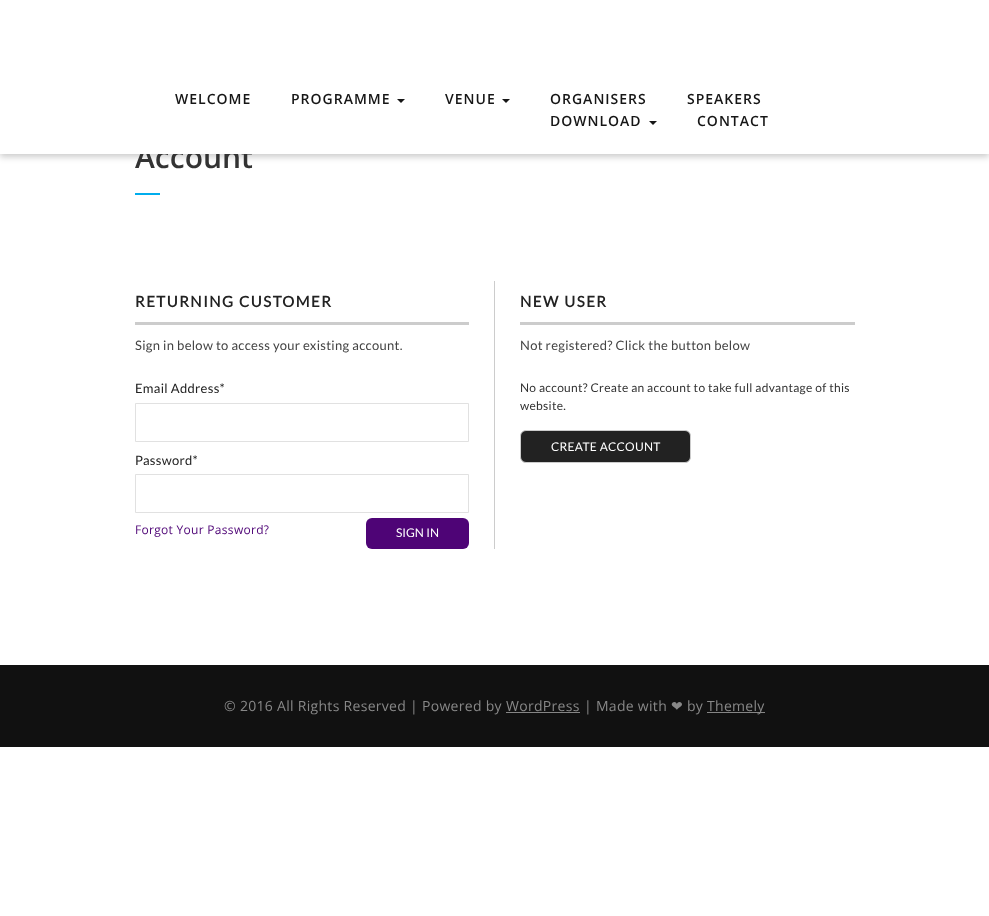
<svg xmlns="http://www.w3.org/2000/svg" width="989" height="916">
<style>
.a{font:600 30px Open Sans;fill:#333}
.b{font:600 14px Open Sans;letter-spacing:1px;fill:#161616}
.c{font:bold 15px Lato;letter-spacing:1.5px;fill:#222}
.d{font:13px Lato;letter-spacing:0.3px;fill:#444}
.e{font:13px Lato;letter-spacing:0.3px;fill:#222}
.f{font:12px Open Sans;letter-spacing:0.3px;fill:#4e0476}
.g{font:12px Lato;fill:#fff}
.h{font:12px Lato;letter-spacing:0.3px;fill:#333}
.i{font:12px Lato;letter-spacing:0.3px;fill:#fff}
.j{font:14px Open Sans;letter-spacing:0.3px;fill:#888}
.k{font:14px DejaVu Sans;letter-spacing:0.3px;fill:#888}
</style>
<rect width="100%" height="100%" fill="#fff"/>
<path fill="#00000033" filter="blur(3px)" d="M0 3h989v154H0z"/>
<path fill="#00aded" d="M135 193h25v2H135z"/>
<path fill="#ccc" d="M494 281h1v268H494z"/>
<path fill="#ccc" d="M135 322h334v3H135z"/>
<path fill="none" stroke="#e1e1e1" d="M135.5 403.5h333v38H135.5z"/>
<path fill="none" stroke="#e1e1e1" d="M135.5 474.5h333v38H135.5z"/>
<rect fill="#4e0476" x="366" y="518" width="103" height="31" rx="6"/>
<path fill="#ccc" d="M520 322h335v3H520z"/>
<rect fill="#222" stroke="#ccc" x="520.5" y="430.5" width="170" height="32" rx="5.5"/>
<path fill="#111" d="M0 665h989v82H0z"/>
<path fill="#858585" d="M506 712h74v1H506z"/>
<path fill="#858585" d="M707 712h58v1H707z"/>
<text class="a" x="135" y="168">Account</text>
<path fill="#fff" d="M0 0h989v154H0z"/>
<text class="b" x="697" y="126">CONTACT</text>
<path fill="#161616" d="M649 121h8l-4 4z"/>
<text class="b" x="550" y="126">DOWNLOAD</text>
<text class="b" x="687" y="104">SPEAKERS</text>
<text class="b" x="550" y="104">ORGANISERS</text>
<path fill="#161616" d="M502 99h8l-4 4z"/>
<text class="b" x="445" y="104">VENUE</text>
<path fill="#161616" d="M397 99h8l-4 4z"/>
<text class="b" x="291" y="104">PROGRAMME</text>
<text class="b" x="175" y="104">WELCOME</text>
<text class="c" x="135" y="307">RETURNING CUSTOMER</text>
<text class="d" x="135" y="350">Sign in below to access your existing account.</text>
<text class="e" x="135" y="393">Email Address*</text>
<text class="e" x="135" y="465">Password*</text>
<text class="f" x="135" y="534">Forgot Your Password?</text>
<text class="g" x="396" y="537">SIGN IN</text>
<text class="c" x="520" y="307">NEW USER</text>
<text class="d" x="520" y="350">Not registered? Click the button below</text>
<text class="h" x="520" y="392">No account? Create an account to take full advantage of this</text>
<text class="h" x="520" y="410">website.</text>
<text class="i" x="551" y="451">CREATE ACCOUNT</text>
<text class="j" x="224" y="711">© 2016 All Rights Reserved | Powered by</text>
<text class="j" x="506" y="711">WordPress</text>
<text class="j" x="584" y="711">| Made with</text>
<text class="k" x="671" y="711">❤</text>
<text class="j" x="687" y="711">by</text>
<text class="j" x="707" y="711">Themely</text>
</svg>
